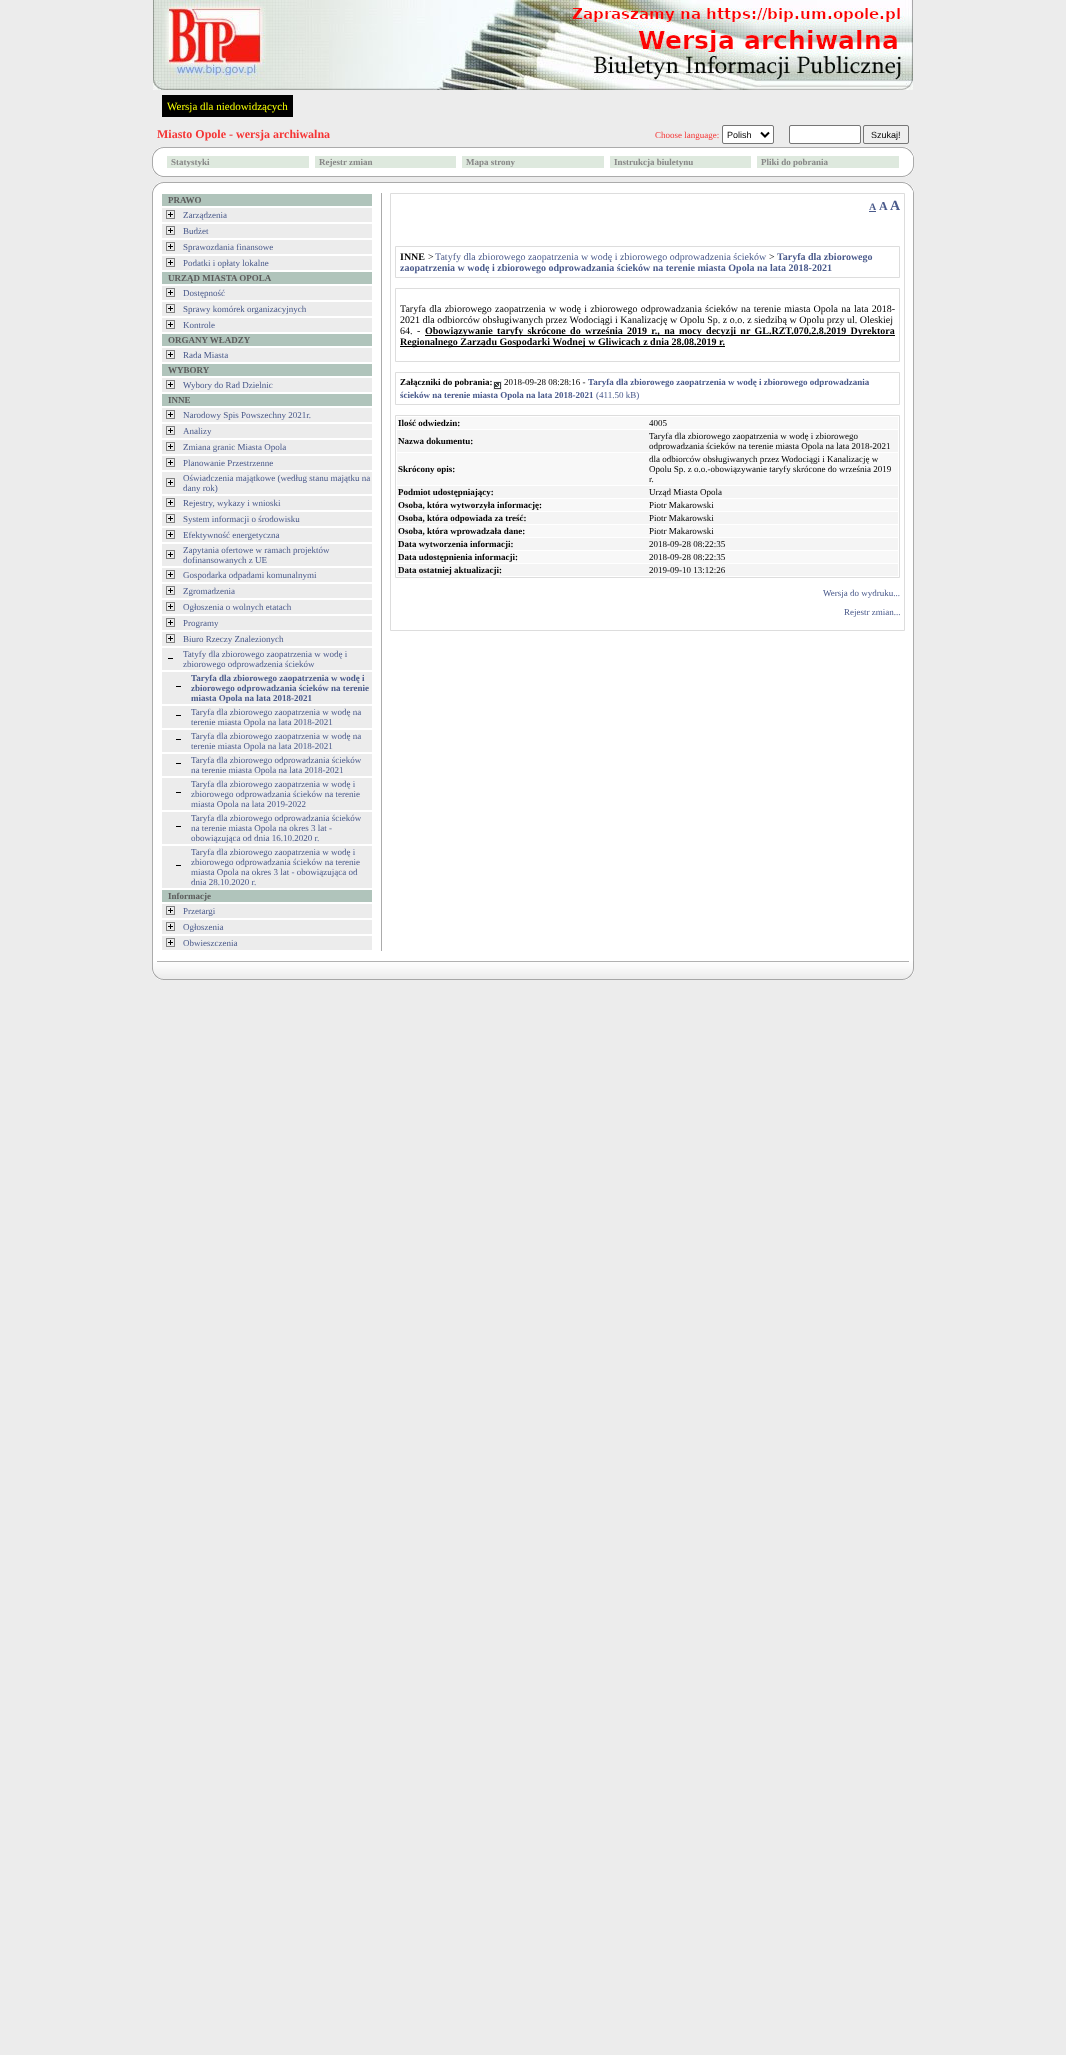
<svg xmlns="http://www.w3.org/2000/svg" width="1066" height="2055">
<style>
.a{font:11px Liberation Serif;fill:#f6ff00}
.b{font:bold 12px Liberation Serif;fill:#f53535}
.c{font:9px Liberation Serif;fill:#f53535}
.d{font:9px Liberation Sans;fill:#000}
.e{font:bold 9px Liberation Serif;fill:#878787}
.f{font:bold 9px Liberation Serif;fill:#5c5c5c}
.g{font:9px Liberation Serif;fill:#4a5a8b}
.h{font:bold 9px Liberation Serif;fill:#4a5a8b}
.i{font:bold 10px Liberation Serif;fill:#4a5a8b}
.j{font:bold 12px Liberation Serif;fill:#4a5a8b}
.k{font:bold 14px Liberation Serif;fill:#4a5a8b}
.l{font:bold 10px Liberation Serif;fill:#000}
.m{font:10px Liberation Serif;fill:#000}
.n{font:10px Liberation Serif;fill:#4a5a8b}
.o{font:bold 9px Liberation Serif;fill:#000}
.p{font:9px Liberation Serif;fill:#000}
</style>
<rect width="100%" height="100%" fill="#ececec"/>
<image href="1.png" x="153" y="0" width="760" height="90"/>
<path fill="#000" d="M162 95h131v22H162z"/>
<rect fill="#fff" stroke="#767676" x="722.5" y="125.5" width="51" height="18" rx="1.5"/>
<path fill="none" stroke="#000" stroke-width="2" d="M761 132.5l4 4l4-4"/>
<rect fill="#fff" stroke="#767676" x="789.5" y="125.5" width="71" height="18" rx="1.5"/>
<rect fill="#efefef" stroke="#767676" x="863.5" y="125.5" width="45" height="18" rx="1.5"/>
<path fill="#fff" d="M152 158h11v8H152z"/>
<path fill="#ababab" d="M152 158h1v8H152z"/>
<path fill="#fff" d="M903 158h11v8H903z"/>
<path fill="#ababab" d="M913 158h1v8H913z"/>
<image href="2.png" x="152" y="147" width="11" height="11"/>
<image href="3.png" x="903" y="147" width="11" height="11"/>
<path fill="#fff" d="M163 148h740v28H163z"/>
<path fill="#ababab" d="M163 147h740v1H163z"/>
<path fill="#ababab" d="M163 176h740v1H163z"/>
<path fill="#dee9de" d="M167 156h142v12H167z"/>
<path fill="#dee9de" d="M315 156h141v12H315z"/>
<path fill="#dee9de" d="M462 156h142v12H462z"/>
<path fill="#dee9de" d="M610 156h141v12H610z"/>
<path fill="#dee9de" d="M757 156h142v12H757z"/>
<image href="4.png" x="152" y="166" width="11" height="11"/>
<image href="5.png" x="903" y="166" width="11" height="11"/>
<image href="2.png" x="152" y="182" width="11" height="11"/>
<path fill="#fff" d="M163 183h740v10H163z"/>
<path fill="#ababab" d="M163 182h740v1H163z"/>
<image href="3.png" x="903" y="182" width="11" height="11"/>
<path fill="#fff" d="M153 193h760v768H153z"/>
<path fill="#ababab" d="M913 193h1v768H913z"/>
<path fill="#ababab" d="M152 193h1v768H152z"/>
<path fill="#b0c4bb" d="M162 194h210v12H162z"/>
<path fill="#ececec" d="M162 208h210v14H162z"/>
<image href="6.png" x="166" y="210" width="9" height="9"/>
<path fill="#ececec" d="M162 224h210v14H162z"/>
<image href="6.png" x="166" y="226" width="9" height="9"/>
<path fill="#ececec" d="M162 240h210v14H162z"/>
<image href="6.png" x="166" y="242" width="9" height="9"/>
<path fill="#ececec" d="M162 256h210v14H162z"/>
<image href="6.png" x="166" y="258" width="9" height="9"/>
<path fill="#b0c4bb" d="M162 272h210v12H162z"/>
<path fill="#ececec" d="M162 286h210v14H162z"/>
<image href="6.png" x="166" y="288" width="9" height="9"/>
<path fill="#ececec" d="M162 302h210v14H162z"/>
<image href="6.png" x="166" y="304" width="9" height="9"/>
<path fill="#ececec" d="M162 318h210v14H162z"/>
<image href="6.png" x="166" y="320" width="9" height="9"/>
<path fill="#b0c4bb" d="M162 334h210v12H162z"/>
<path fill="#ececec" d="M162 348h210v14H162z"/>
<image href="6.png" x="166" y="350" width="9" height="9"/>
<path fill="#b0c4bb" d="M162 364h210v12H162z"/>
<path fill="#ececec" d="M162 378h210v14H162z"/>
<image href="6.png" x="166" y="380" width="9" height="9"/>
<path fill="#b0c4bb" d="M162 394h210v12H162z"/>
<path fill="#ececec" d="M162 408h210v14H162z"/>
<image href="6.png" x="166" y="410" width="9" height="9"/>
<path fill="#ececec" d="M162 424h210v14H162z"/>
<image href="6.png" x="166" y="426" width="9" height="9"/>
<path fill="#ececec" d="M162 440h210v14H162z"/>
<image href="6.png" x="166" y="442" width="9" height="9"/>
<path fill="#ececec" d="M162 456h210v14H162z"/>
<image href="6.png" x="166" y="458" width="9" height="9"/>
<path fill="#ececec" d="M162 472h210v22H162z"/>
<image href="6.png" x="166" y="478" width="9" height="9"/>
<path fill="#ececec" d="M162 496h210v14H162z"/>
<image href="6.png" x="166" y="498" width="9" height="9"/>
<path fill="#ececec" d="M162 512h210v14H162z"/>
<image href="6.png" x="166" y="514" width="9" height="9"/>
<path fill="#ececec" d="M162 528h210v14H162z"/>
<image href="6.png" x="166" y="530" width="9" height="9"/>
<path fill="#ececec" d="M162 544h210v22H162z"/>
<image href="6.png" x="166" y="550" width="9" height="9"/>
<path fill="#ececec" d="M162 568h210v14H162z"/>
<image href="6.png" x="166" y="570" width="9" height="9"/>
<path fill="#ececec" d="M162 584h210v14H162z"/>
<image href="6.png" x="166" y="586" width="9" height="9"/>
<path fill="#ececec" d="M162 600h210v14H162z"/>
<image href="6.png" x="166" y="602" width="9" height="9"/>
<path fill="#ececec" d="M162 616h210v14H162z"/>
<image href="6.png" x="166" y="618" width="9" height="9"/>
<path fill="#ececec" d="M162 632h210v14H162z"/>
<image href="6.png" x="166" y="634" width="9" height="9"/>
<path fill="#ececec" d="M162 648h210v22H162z"/>
<path fill="#000" d="M168 658h5v1H168z"/>
<path fill="#ececec" d="M162 672h210v32H162z"/>
<path fill="#000" d="M176 686h5v1H176z"/>
<path fill="#ececec" d="M162 706h210v22H162z"/>
<path fill="#000" d="M176 715h5v1H176z"/>
<path fill="#ececec" d="M162 730h210v22H162z"/>
<path fill="#000" d="M176 739h5v1H176z"/>
<path fill="#ececec" d="M162 754h210v22H162z"/>
<path fill="#000" d="M176 763h5v1H176z"/>
<path fill="#ececec" d="M162 778h210v32H162z"/>
<path fill="#000" d="M176 792h5v1H176z"/>
<path fill="#ececec" d="M162 812h210v32H162z"/>
<path fill="#000" d="M176 826h5v1H176z"/>
<path fill="#ececec" d="M162 846h210v42H162z"/>
<path fill="#000" d="M176 865h5v1H176z"/>
<path fill="#b0c4bb" d="M162 890h210v12H162z"/>
<path fill="#ececec" d="M162 904h210v14H162z"/>
<image href="6.png" x="166" y="906" width="9" height="9"/>
<path fill="#ececec" d="M162 920h210v14H162z"/>
<image href="6.png" x="166" y="922" width="9" height="9"/>
<path fill="#ececec" d="M162 936h210v14H162z"/>
<image href="6.png" x="166" y="938" width="9" height="9"/>
<path fill="#ababab" d="M381 193h1v758H381z"/>
<path fill="none" stroke="#ddd" d="M390.5 193.5h514v437H390.5z"/>
<path fill="#4a5a8b" d="M869 211h7v1H869z"/>
<path fill="none" stroke="#ddd" d="M395.5 246.5h504v31H395.5z"/>
<path fill="none" stroke="#ddd" d="M395.5 288.5h504v73H395.5z"/>
<path fill="#000" d="M425 335h470v1H425z"/>
<path fill="#000" d="M400 346h325v1H400z"/>
<path fill="none" stroke="#ddd" d="M395.5 372.5h504v32H395.5z"/>
<image href="7.png" x="493" y="381" width="9" height="9"/>
<path fill="none" stroke="#ddd" d="M395.5 415.5h504v162H395.5z"/>
<path fill="#f8f8f8" d="M397 417h501v12H397z"/>
<path fill="#f4f4f4" d="M397 430h501v22H397z"/>
<path fill="#f8f8f8" d="M397 453h501v32H397z"/>
<path fill="#f4f4f4" d="M397 486h501v12H397z"/>
<path fill="#f8f8f8" d="M397 499h501v12H397z"/>
<path fill="#f4f4f4" d="M397 512h501v12H397z"/>
<path fill="#f8f8f8" d="M397 525h501v12H397z"/>
<path fill="#f4f4f4" d="M397 538h501v12H397z"/>
<path fill="#f8f8f8" d="M397 551h501v12H397z"/>
<path fill="#f4f4f4" d="M397 564h501v12H397z"/>
<image href="8.png" x="152" y="961" width="11" height="19"/>
<image href="9.png" x="163" y="961" width="740" height="19"/>
<image href="10.png" x="903" y="961" width="11" height="19"/>
<text class="a" x="167" y="110">Wersja dla niedowidzących</text>
<text class="b" x="157" y="138">Miasto Opole - wersja archiwalna</text>
<text class="c" x="655" y="138">Choose language:</text>
<text class="d" x="727" y="138">Polish</text>
<text class="d" x="871" y="138">Szukaj!</text>
<text class="e" x="171" y="165">Statystyki</text>
<text class="e" x="319" y="165">Rejestr zmian</text>
<text class="e" x="466" y="165">Mapa strony</text>
<text class="e" x="614" y="165">Instrukcja biuletynu</text>
<text class="e" x="761" y="165">Pliki do pobrania</text>
<text class="f" x="168" y="203">PRAWO</text>
<text class="g" x="183" y="218">Zarządzenia</text>
<text class="g" x="183" y="234">Budżet</text>
<text class="g" x="183" y="250">Sprawozdania finansowe</text>
<text class="g" x="183" y="266">Podatki i opłaty lokalne</text>
<text class="f" x="168" y="281">URZĄD MIASTA OPOLA</text>
<text class="g" x="183" y="296">Dostępność</text>
<text class="g" x="183" y="312">Sprawy komórek organizacyjnych</text>
<text class="g" x="183" y="328">Kontrole</text>
<text class="f" x="168" y="343">ORGANY WŁADZY</text>
<text class="g" x="183" y="358">Rada Miasta</text>
<text class="f" x="168" y="373">WYBORY</text>
<text class="g" x="183" y="388">Wybory do Rad Dzielnic</text>
<text class="f" x="168" y="403">INNE</text>
<text class="g" x="183" y="418">Narodowy Spis Powszechny 2021r.</text>
<text class="g" x="183" y="434">Analizy</text>
<text class="g" x="183" y="450">Zmiana granic Miasta Opola</text>
<text class="g" x="183" y="466">Planowanie Przestrzenne</text>
<text class="g" x="183" y="481">Oświadczenia majątkowe (według stanu majątku na</text>
<text class="g" x="183" y="491">dany rok)</text>
<text class="g" x="183" y="506">Rejestry, wykazy i wnioski</text>
<text class="g" x="183" y="522">System informacji o środowisku</text>
<text class="g" x="183" y="538">Efektywność energetyczna</text>
<text class="g" x="183" y="553">Zapytania ofertowe w ramach projektów</text>
<text class="g" x="183" y="563">dofinansowanych z UE</text>
<text class="g" x="183" y="578">Gospodarka odpadami komunalnymi</text>
<text class="g" x="183" y="594">Zgromadzenia</text>
<text class="g" x="183" y="610">Ogłoszenia o wolnych etatach</text>
<text class="g" x="183" y="626">Programy</text>
<text class="g" x="183" y="642">Biuro Rzeczy Znalezionych</text>
<text class="g" x="183" y="657">Tatyfy dla zbiorowego zaopatrzenia w wodę i</text>
<text class="g" x="183" y="667">zbiorowego odprowadzenia ścieków</text>
<text class="h" x="191" y="681">Taryfa dla zbiorowego zaopatrzenia w wodę i</text>
<text class="h" x="191" y="691">zbiorowego odprowadzania ścieków na terenie</text>
<text class="h" x="191" y="701">miasta Opola na lata 2018-2021</text>
<text class="g" x="191" y="715">Taryfa dla zbiorowego zaopatrzenia w wodę na</text>
<text class="g" x="191" y="725">terenie miasta Opola na lata 2018-2021</text>
<text class="g" x="191" y="739">Taryfa dla zbiorowego zaopatrzenia w wodę na</text>
<text class="g" x="191" y="749">terenie miasta Opola na lata 2018-2021</text>
<text class="g" x="191" y="763">Taryfa dla zbiorowego odprowadzania ścieków</text>
<text class="g" x="191" y="773">na terenie miasta Opola na lata 2018-2021</text>
<text class="g" x="191" y="787">Taryfa dla zbiorowego zaopatrzenia w wodę i</text>
<text class="g" x="191" y="797">zbiorowego odprowadzania ścieków na terenie</text>
<text class="g" x="191" y="807">miasta Opola na lata 2019-2022</text>
<text class="g" x="191" y="821">Taryfa dla zbiorowego odprowadzania ścieków</text>
<text class="g" x="191" y="831">na terenie miasta Opola na okres 3 lat -</text>
<text class="g" x="191" y="841">obowiązująca od dnia 16.10.2020 r.</text>
<text class="g" x="191" y="855">Taryfa dla zbiorowego zaopatrzenia w wodę i</text>
<text class="g" x="191" y="865">zbiorowego odprowadzania ścieków na terenie</text>
<text class="g" x="191" y="875">miasta Opola na okres 3 lat - obowiązująca od</text>
<text class="g" x="191" y="885">dnia 28.10.2020 r.</text>
<text class="f" x="168" y="899">Informacje</text>
<text class="g" x="183" y="914">Przetargi</text>
<text class="g" x="183" y="930">Ogłoszenia</text>
<text class="g" x="183" y="946">Obwieszczenia</text>
<text class="i" x="869" y="210">A</text>
<text class="j" x="879" y="210">A</text>
<text class="k" x="890" y="210">A</text>
<text class="l" x="400" y="260">INNE</text>
<text class="m" x="428" y="260">&gt;</text>
<text class="n" x="435" y="260">Tatyfy dla zbiorowego zaopatrzenia w wodę i zbiorowego odprowadzenia ścieków</text>
<text class="m" x="769" y="260">&gt;</text>
<text class="i" x="777" y="260">Taryfa dla zbiorowego</text>
<text class="i" x="400" y="271">zaopatrzenia w wodę i zbiorowego odprowadzania ścieków na terenie miasta Opola na lata 2018-2021</text>
<text class="m" x="400" y="312" word-spacing="0.75">Taryfa dla zbiorowego zaopatrzenia w wodę i zbiorowego odprowadzania ścieków na terenie miasta Opola na lata 2018-</text>
<text class="m" x="400" y="323">2021 dla odbiorców obsługiwanych przez Wodociągi i Kanalizację w Opolu Sp. z o.o. z siedzibą w Opolu przy ul. Oleskiej</text>
<text class="m" x="400" y="334" word-spacing="2">64. -</text>
<text class="l" x="425" y="334" word-spacing="1.8">Obowiązywanie taryfy skrócone do września 2019 r., na mocy decyzji nr GL.RZT.070.2.8.2019 Dyrektora</text>
<text class="l" x="400" y="345">Regionalnego Zarządu Gospodarki Wodnej w Gliwicach z dnia 28.08.2019 r.</text>
<text class="o" x="400" y="385">Załączniki do pobrania:</text>
<text class="p" x="504" y="385">2018-09-28 08:28:16 -</text>
<text class="h" x="588" y="385">Taryfa dla zbiorowego zaopatrzenia w wodę i zbiorowego odprowadzania</text>
<text class="h" x="400" y="398">ścieków na terenie miasta Opola na lata 2018-2021</text>
<text class="g" x="596" y="398">(411.50 kB)</text>
<text class="o" x="398" y="426">Ilość odwiedzin:</text>
<text class="p" x="649" y="426">4005</text>
<text class="o" x="398" y="444">Nazwa dokumentu:</text>
<text class="p" x="649" y="439">Taryfa dla zbiorowego zaopatrzenia w wodę i zbiorowego</text>
<text class="p" x="649" y="449">odprowadzania ścieków na terenie miasta Opola na lata 2018-2021</text>
<text class="o" x="398" y="472">Skrócony opis:</text>
<text class="p" x="649" y="462">dla odbiorców obsługiwanych przez Wodociągi i Kanalizację w</text>
<text class="p" x="649" y="472">Opolu Sp. z o.o.-obowiązywanie taryfy skrócone do września 2019</text>
<text class="p" x="649" y="482">r.</text>
<text class="o" x="398" y="495">Podmiot udostępniający:</text>
<text class="p" x="649" y="495">Urząd Miasta Opola</text>
<text class="o" x="398" y="508">Osoba, która wytworzyła informację:</text>
<text class="p" x="649" y="508">Piotr Makarowski</text>
<text class="o" x="398" y="521">Osoba, która odpowiada za treść:</text>
<text class="p" x="649" y="521">Piotr Makarowski</text>
<text class="o" x="398" y="534">Osoba, która wprowadzała dane:</text>
<text class="p" x="649" y="534">Piotr Makarowski</text>
<text class="o" x="398" y="547">Data wytworzenia informacji:</text>
<text class="p" x="649" y="547">2018-09-28 08:22:35</text>
<text class="o" x="398" y="560">Data udostępnienia informacji:</text>
<text class="p" x="649" y="560">2018-09-28 08:22:35</text>
<text class="o" x="398" y="573">Data ostatniej aktualizacji:</text>
<text class="p" x="649" y="573">2019-09-10 13:12:26</text>
<text class="g" x="823" y="596">Wersja do wydruku...</text>
<text class="g" x="844" y="615">Rejestr zmian...</text>
</svg>
